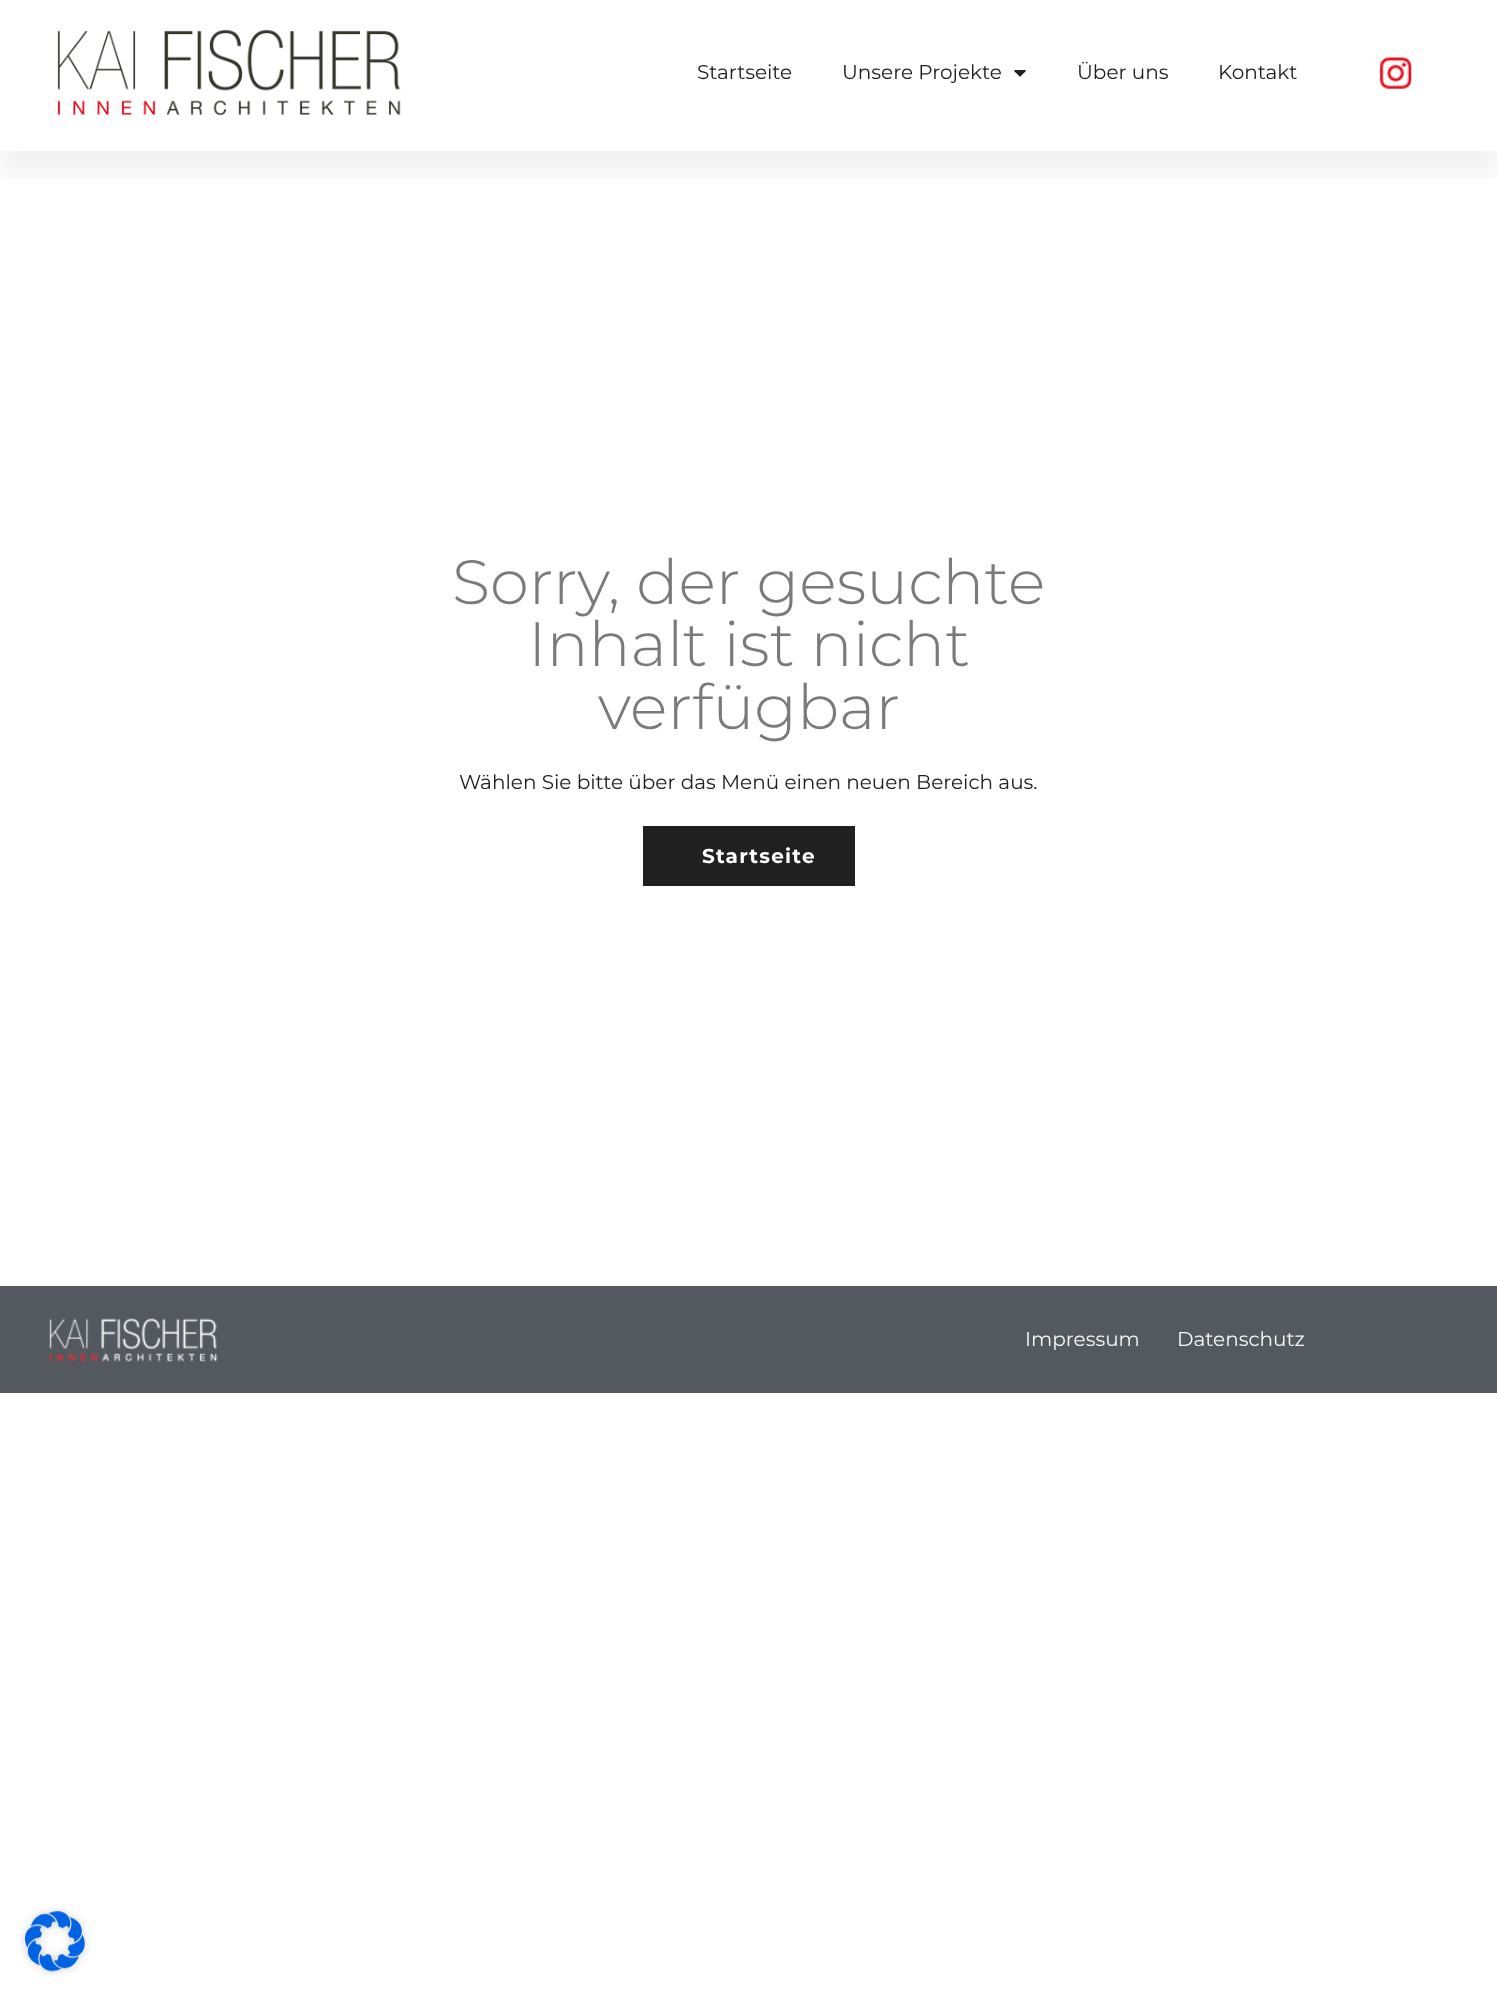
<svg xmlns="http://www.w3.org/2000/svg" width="1497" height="1996">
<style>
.a{font:20px Montserrat;fill:#202020}
.b{font:300 62.5px Montserrat;fill:#7a7a7a}
.c{font:bold 20px Montserrat;letter-spacing:1.25px;fill:#fff}
.d{font:20px Montserrat;fill:#f6f6f6}
</style>
<defs>
<clipPath id="clip1"><path d="M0 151h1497v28H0z"/></clipPath>
</defs>
<rect width="100%" height="100%" fill="#fff"/>
<g clip-path="url(#clip1)">
<path fill="#0000000d" filter="blur(12.5px)" d="M0 25h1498v151H0z"/>
</g>
<image href="1.png" x="57" y="29" width="344" height="87"/>
<image href="2.png" x="1014" y="70" width="12" height="7"/>
<image href="3.png" x="1379" y="57" width="33" height="32"/>
<path fill="#202020" d="M643 826h212v60H643z"/>
<path fill="#54595f" d="M0 1286h1497v107H0z"/>
<image href="4.png" x="48" y="1318" width="170" height="44"/>
<image href="5.png" x="20" y="1906" width="70" height="70"/>
<text class="a" x="697" y="79">Startseite</text>
<text class="a" x="842" y="79">Unsere Projekte</text>
<text class="a" x="1077" y="79">Über uns</text>
<text class="a" x="1218" y="79">Kontakt</text>
<text class="b" x="452" y="604">Sorry, der gesuchte</text>
<text class="b" x="528" y="666">Inhalt ist nicht</text>
<text class="b" x="598" y="729">verfügbar</text>
<text class="a" x="459" y="789">Wählen Sie bitte über das Menü einen neuen Bereich aus.</text>
<text class="c" x="702" y="863">Startseite</text>
<text class="d" x="1025" y="1346">Impressum</text>
<text class="d" x="1177" y="1346">Datenschutz</text>
</svg>
